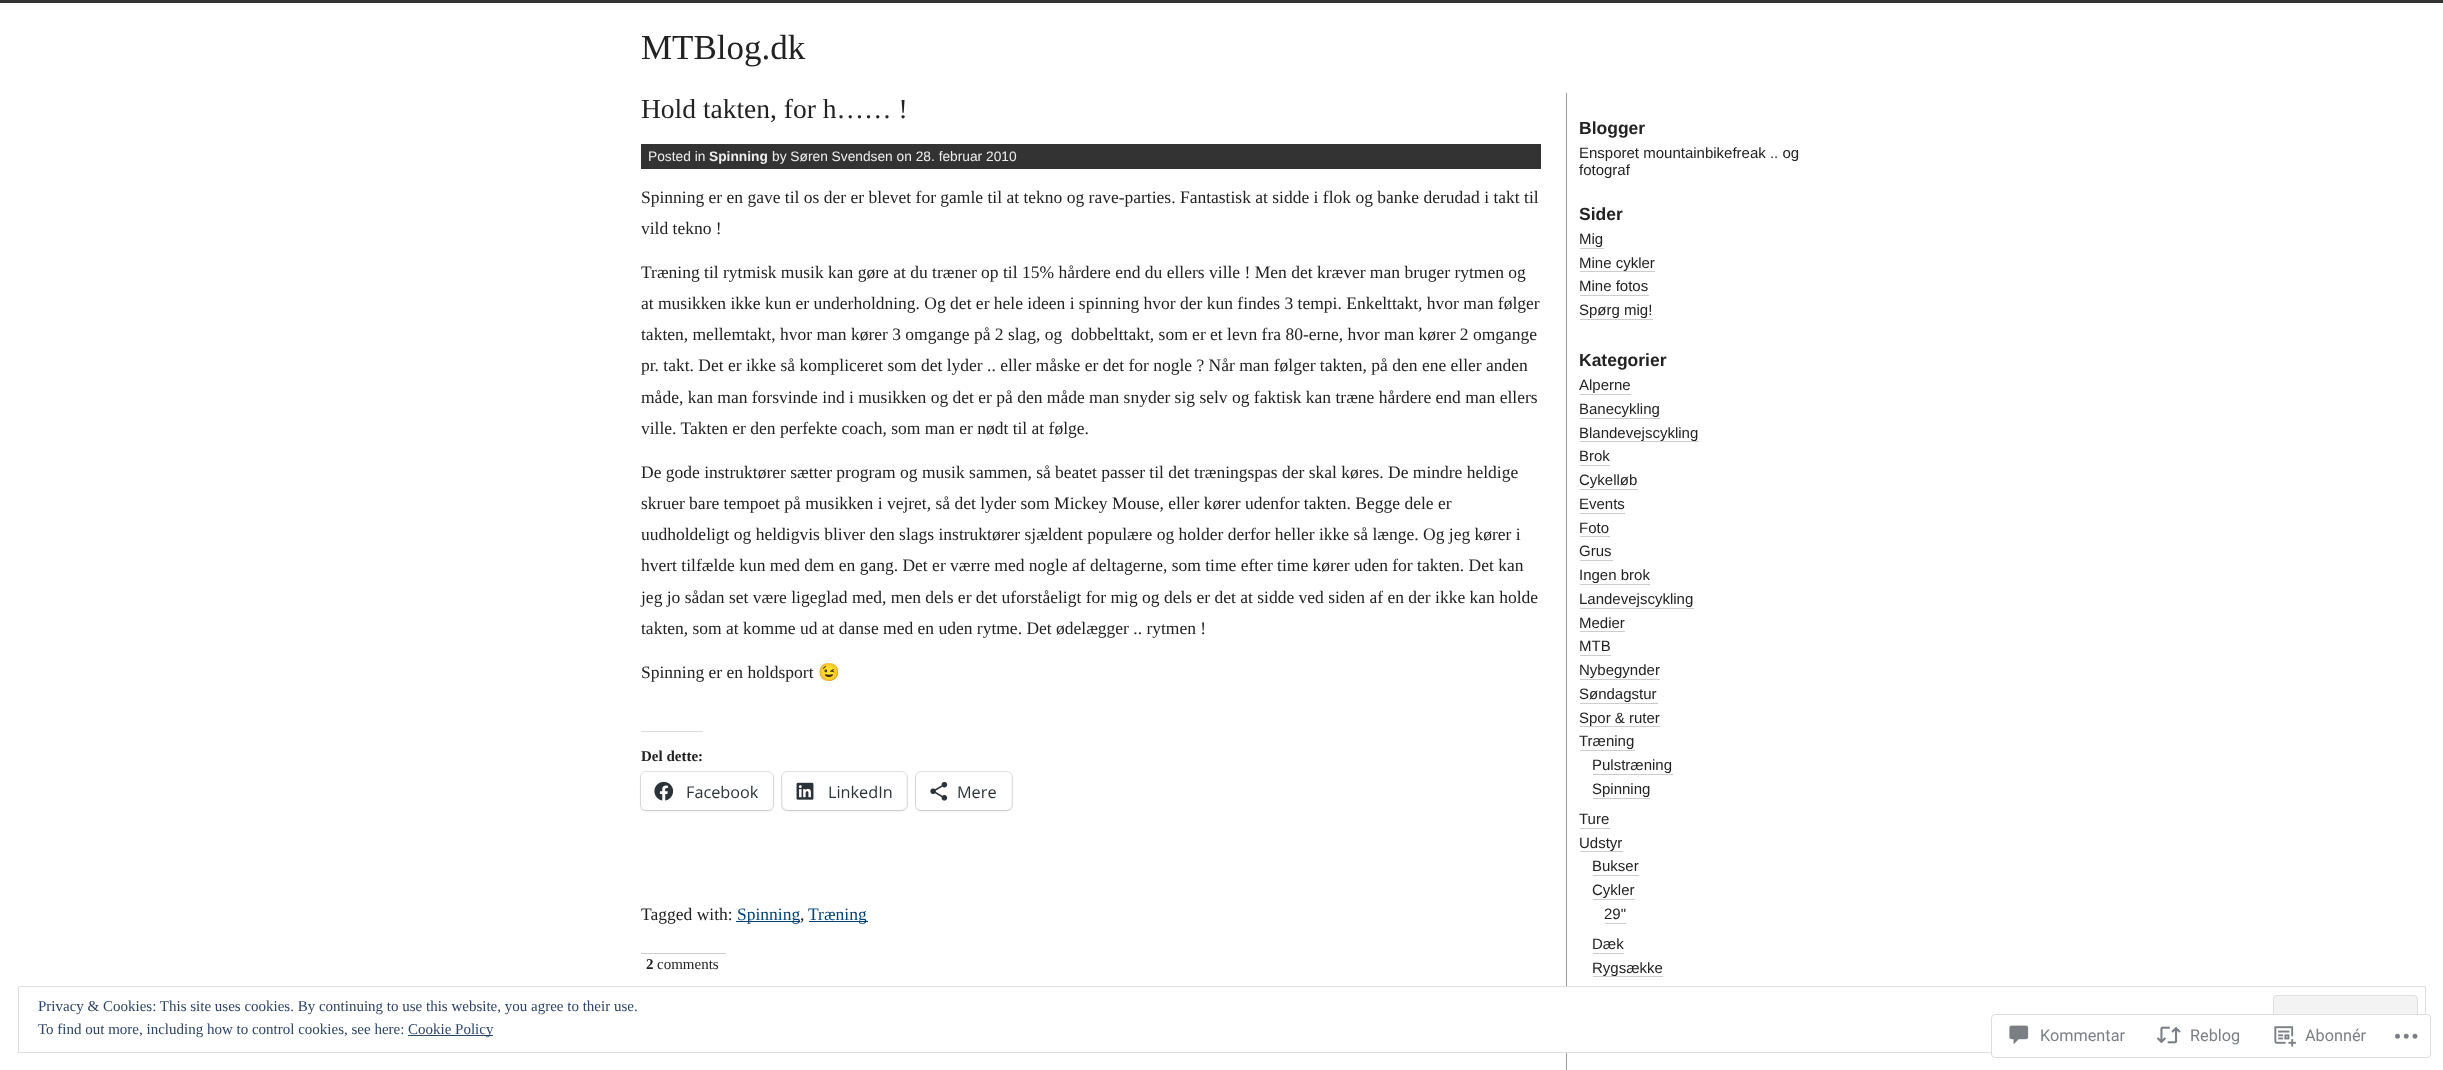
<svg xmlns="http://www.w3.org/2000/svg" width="2443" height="1070">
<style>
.a{font:35px Liberation Serif;fill:#222}
.b{font:27.5px Liberation Serif;fill:#222}
.c{font:13.75px Liberation Sans;fill:#eee}
.d{font:bold 13.75px Liberation Sans;fill:#eee}
.e{font:17.5px Liberation Serif;fill:#222}
.f{font:17.5px Noto Color Emoji;fill:#222}
.g{font:bold 15px Liberation Serif;fill:#222}
.h{font:16.25px Open Sans;fill:#2c3338}
.i{font:17.5px Liberation Serif;fill:#004276}
.j{font:15px Liberation Serif;fill:#222}
.k{font:bold 17.5px Liberation Sans;fill:#222}
.l{font:15px Liberation Sans;fill:#222}
.m{font:15px Liberation Serif;fill:#2e4467}
.n{font:16.25px Roboto;fill:#7b7f85}
</style>
<rect width="100%" height="100%" fill="#fff"/>
<path fill="#333" d="M0 0h2443v3H0z"/>
<path fill="#333" d="M641 144h900v25H641z"/>
<path fill="#dcdcde" d="M641 731h62v1H641z"/>
<rect fill="none" stroke="#e0e0e0" x="640.5" y="771.5" width="133" height="39" rx="5.5"/>
<rect fill="#0000001f" filter="blur(1px)" x="641" y="774" width="132" height="37" rx="5"/>
<rect fill="#fff" x="641" y="773" width="132" height="37" rx="5"/>
<image href="1.png" x="654" y="781" width="20" height="20"/>
<rect fill="none" stroke="#e0e0e0" x="781.5" y="771.5" width="126" height="39" rx="5.5"/>
<rect fill="#0000001f" filter="blur(1px)" x="783" y="774" width="123" height="37" rx="5"/>
<rect fill="#fff" x="783" y="773" width="123" height="37" rx="5"/>
<image href="2.png" x="796" y="782" width="18" height="18"/>
<rect fill="none" stroke="#e0e0e0" x="915.5" y="771.5" width="97" height="39" rx="5.5"/>
<rect fill="#0000001f" filter="blur(1px)" x="916" y="774" width="95" height="37" rx="5"/>
<rect fill="#fff" x="916" y="773" width="95" height="37" rx="5"/>
<image href="3.png" x="930" y="781" width="18" height="20"/>
<path fill="#004276" d="M736 921h64v1H736z"/>
<path fill="#004276" d="M809 921h59v1H809z"/>
<path fill="#ccc" d="M641 953h85v1H641z"/>
<path fill="#999" d="M1566 93h1v977H1566z"/>
<path fill="#ccc" d="M1580 248h24v1H1580z"/>
<path fill="#ccc" d="M1580 271h75v1H1580z"/>
<path fill="#ccc" d="M1580 295h69v1H1580z"/>
<path fill="#ccc" d="M1580 319h73v1H1580z"/>
<path fill="#ccc" d="M1580 394h51v1H1580z"/>
<path fill="#ccc" d="M1580 418h80v1H1580z"/>
<path fill="#ccc" d="M1580 441h119v1H1580z"/>
<path fill="#ccc" d="M1580 465h30v1H1580z"/>
<path fill="#ccc" d="M1580 489h58v1H1580z"/>
<path fill="#ccc" d="M1580 513h45v1H1580z"/>
<path fill="#ccc" d="M1580 536h30v1H1580z"/>
<path fill="#ccc" d="M1580 560h33v1H1580z"/>
<path fill="#ccc" d="M1580 584h70v1H1580z"/>
<path fill="#ccc" d="M1580 608h114v1H1580z"/>
<path fill="#ccc" d="M1580 631h45v1H1580z"/>
<path fill="#ccc" d="M1580 655h31v1H1580z"/>
<path fill="#ccc" d="M1580 679h80v1H1580z"/>
<path fill="#ccc" d="M1580 703h78v1H1580z"/>
<path fill="#ccc" d="M1580 726h80v1H1580z"/>
<path fill="#ccc" d="M1580 750h55v1H1580z"/>
<path fill="#ccc" d="M1593 774h80v1H1593z"/>
<path fill="#ccc" d="M1593 798h57v1H1593z"/>
<path fill="#ccc" d="M1580 828h30v1H1580z"/>
<path fill="#ccc" d="M1580 851h43v1H1580z"/>
<path fill="#ccc" d="M1593 875h46v1H1593z"/>
<path fill="#ccc" d="M1593 899h42v1H1593z"/>
<path fill="#ccc" d="M1605 923h21v1H1605z"/>
<path fill="#ccc" d="M1593 953h31v1H1593z"/>
<path fill="#ccc" d="M1593 976h70v1H1593z"/>
<path fill="#fff" d="M1566 987h1v65H1566z"/>
<path fill="none" stroke="#dedede" d="M18.5 986.5h2407v66H18.5z"/>
<rect fill="#f3f3f3" stroke="#dedede" x="2273.5" y="995.5" width="144" height="48" rx="3.5"/>
<path fill="#2e4467" d="M408 1035h85v1H408z"/>
<rect fill="#fffffffa" x="1991" y="1014" width="440" height="44" rx="4"/>
<rect fill="none" stroke="#dcdcdefa" x="1991.5" y="1014.5" width="439" height="43" rx="3.5"/>
<image href="4.png" x="2009" y="1025" width="20" height="20"/>
<image href="5.png" x="2156" y="1026" width="25" height="18"/>
<image href="6.png" x="2274" y="1026" width="22" height="21"/>
<image href="7.png" x="2395" y="1033" width="23" height="6"/>
<text class="a" x="641" y="59">MTBlog.dk</text>
<text class="b" x="641" y="118">Hold takten, for h…… !</text>
<text class="c" x="648" y="161">Posted in</text>
<text class="d" x="709" y="161">Spinning</text>
<text class="c" x="772" y="161">by Søren Svendsen on 28. februar 2010</text>
<text class="e" x="641" y="203">Spinning er en gave til os der er blevet for gamle til at tekno og rave-parties. Fantastisk at sidde i flok og banke derudad i takt til</text>
<text class="e" x="641" y="234">vild tekno !</text>
<text class="e" x="641" y="278">Træning til rytmisk musik kan gøre at du træner op til 15% hårdere end du ellers ville ! Men det kræver man bruger rytmen og</text>
<text class="e" x="641" y="309">at musikken ikke kun er underholdning. Og det er hele ideen i spinning hvor der kun findes 3 tempi. Enkelttakt, hvor man følger</text>
<text class="e" xml:space="preserve" x="641" y="340">takten, mellemtakt, hvor man kører 3 omgange på 2 slag, og  dobbelttakt, som er et levn fra 80-erne, hvor man kører 2 omgange</text>
<text class="e" x="641" y="371">pr. takt. Det er ikke så kompliceret som det lyder .. eller måske er det for nogle ? Når man følger takten, på den ene eller anden</text>
<text class="e" x="641" y="403">måde, kan man forsvinde ind i musikken og det er på den måde man snyder sig selv og faktisk kan træne hårdere end man ellers</text>
<text class="e" x="641" y="434">ville. Takten er den perfekte coach, som man er nødt til at følge.</text>
<text class="e" x="641" y="478">De gode instruktører sætter program og musik sammen, så beatet passer til det træningspas der skal køres. De mindre heldige</text>
<text class="e" x="641" y="509">skruer bare tempoet på musikken i vejret, så det lyder som Mickey Mouse, eller kører udenfor takten. Begge dele er</text>
<text class="e" x="641" y="540">uudholdeligt og heldigvis bliver den slags instruktører sjældent populære og holder derfor heller ikke så længe. Og jeg kører i</text>
<text class="e" x="641" y="571">hvert tilfælde kun med dem en gang. Det er værre med nogle af deltagerne, som time efter time kører uden for takten. Det kan</text>
<text class="e" x="641" y="603">jeg jo sådan set være ligeglad med, men dels er det uforståeligt for mig og dels er det at sidde ved siden af en der ikke kan holde</text>
<text class="e" x="641" y="634">takten, som at komme ud at danse med en uden rytme. Det ødelægger .. rytmen !</text>
<text class="e" x="641" y="678">Spinning er en holdsport</text>
<text class="f" x="818" y="678">😉</text>
<text class="g" x="641" y="761">Del dette:</text>
<text class="h" x="686" y="798">Facebook</text>
<text class="h" x="828" y="798">LinkedIn</text>
<text class="h" x="957" y="798">Mere</text>
<text class="e" x="641" y="920">Tagged with:</text>
<text class="i" x="737" y="920">Spinning</text>
<text class="e" x="800" y="920">,</text>
<text class="i" x="808" y="920">Træning</text>
<text class="g" x="646" y="969">2</text>
<text class="j" x="657" y="969">comments</text>
<text class="k" x="1579" y="134">Blogger</text>
<text class="l" x="1579" y="158">Ensporet mountainbikefreak .. og</text>
<text class="l" x="1579" y="175">fotograf</text>
<text class="k" x="1579" y="220">Sider</text>
<text class="l" x="1579" y="244">Mig</text>
<text class="l" x="1579" y="268">Mine cykler</text>
<text class="l" x="1579" y="291">Mine fotos</text>
<text class="l" x="1579" y="315">Spørg mig!</text>
<text class="k" x="1579" y="366">Kategorier</text>
<text class="l" x="1579" y="390">Alperne</text>
<text class="l" x="1579" y="414">Banecykling</text>
<text class="l" x="1579" y="438">Blandevejscykling</text>
<text class="l" x="1579" y="461">Brok</text>
<text class="l" x="1579" y="485">Cykelløb</text>
<text class="l" x="1579" y="509">Events</text>
<text class="l" x="1579" y="533">Foto</text>
<text class="l" x="1579" y="556">Grus</text>
<text class="l" x="1579" y="580">Ingen brok</text>
<text class="l" x="1579" y="604">Landevejscykling</text>
<text class="l" x="1579" y="628">Medier</text>
<text class="l" x="1579" y="651">MTB</text>
<text class="l" x="1579" y="675">Nybegynder</text>
<text class="l" x="1579" y="699">Søndagstur</text>
<text class="l" x="1579" y="723">Spor &amp; ruter</text>
<text class="l" x="1579" y="746">Træning</text>
<text class="l" x="1592" y="770">Pulstræning</text>
<text class="l" x="1592" y="794">Spinning</text>
<text class="l" x="1579" y="824">Ture</text>
<text class="l" x="1579" y="848">Udstyr</text>
<text class="l" x="1592" y="871">Bukser</text>
<text class="l" x="1592" y="895">Cykler</text>
<text class="l" x="1604" y="919">29"</text>
<text class="l" x="1592" y="949">Dæk</text>
<text class="l" x="1592" y="973">Rygsække</text>
<text class="m" x="38" y="1011">Privacy &amp; Cookies: This site uses cookies. By continuing to use this website, you agree to their use.</text>
<text class="m" x="38" y="1034">To find out more, including how to control cookies, see here:</text>
<text class="m" x="408" y="1034">Cookie Policy</text>
<text class="n" x="2040" y="1041">Kommentar</text>
<text class="n" x="2190" y="1041">Reblog</text>
<text class="n" x="2305" y="1041">Abonnér</text>
</svg>
